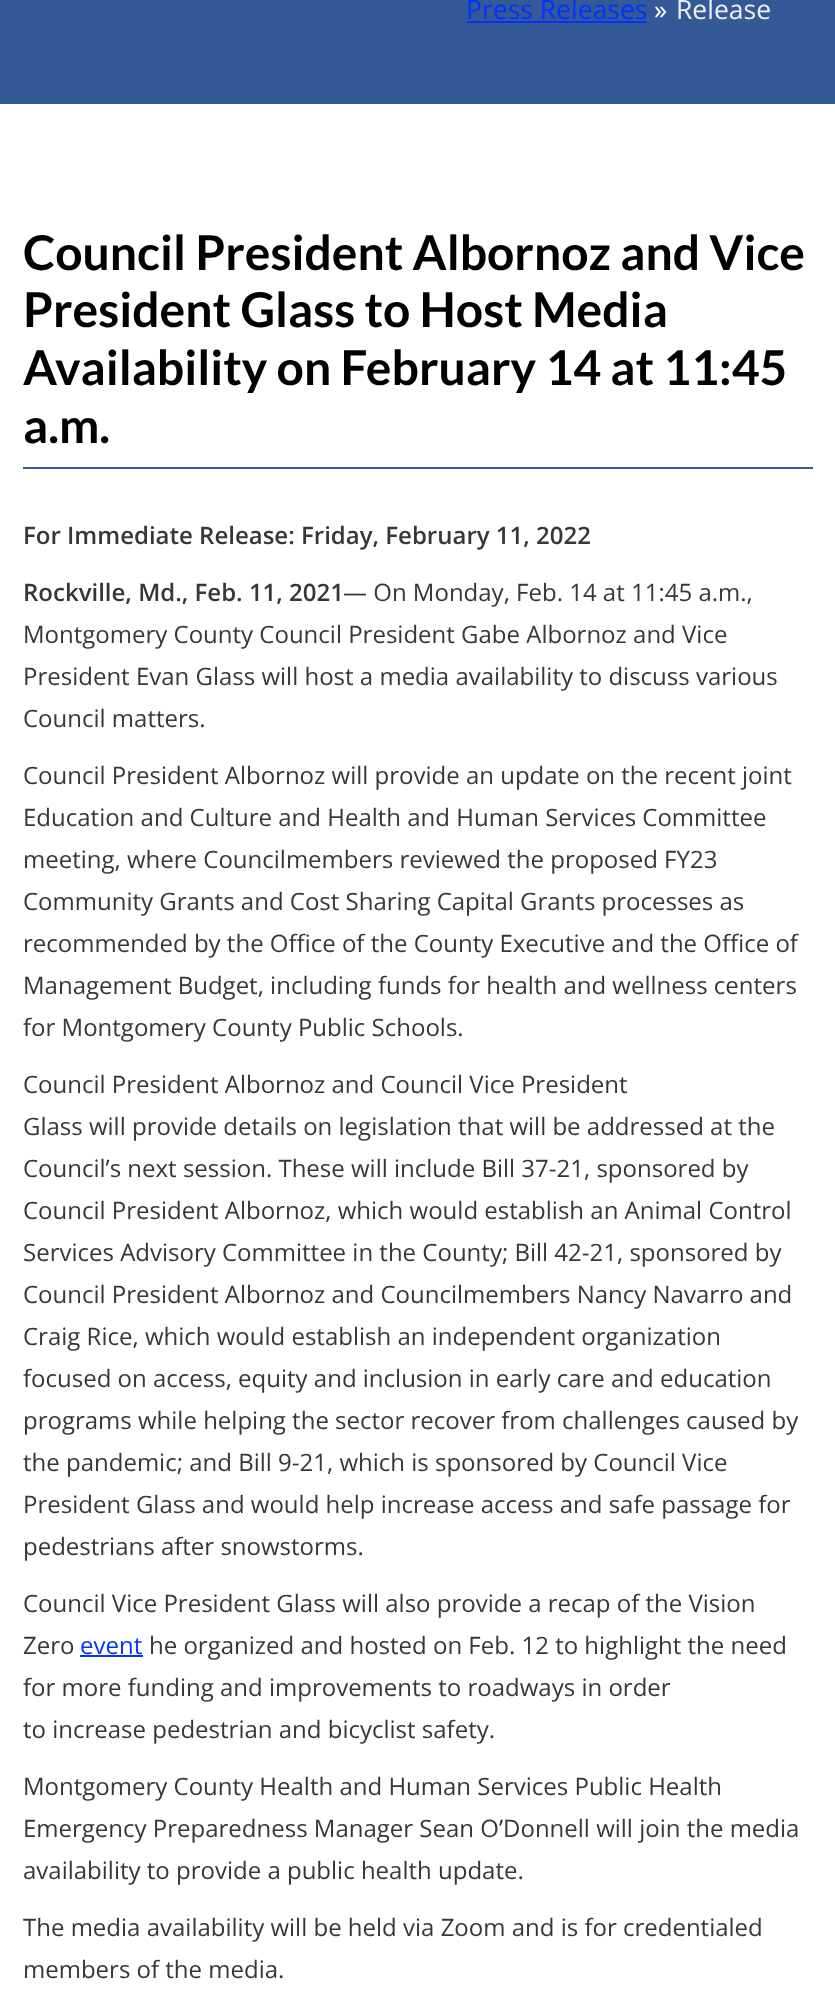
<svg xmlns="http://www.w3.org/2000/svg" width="835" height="2013">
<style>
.a{font:26.5px Open Sans;fill:#03f}
.b{font:26.5px Open Sans;fill:#fff}
.c{font:26.5px Open Sans;fill:#eee}
.d{font:bold 48px Lato;fill:#000}
.e{font:600 24px Open Sans;fill:#373737}
.f{font:24px Open Sans;fill:#373737}
.g{font:24px Open Sans;fill:#03f}
</style>
<rect width="100%" height="100%" fill="#fff"/>
<path fill="#355997" d="M0 0h835v104H0z"/>
<path fill="#03f" d="M467 21h180v2H467z"/>
<path fill="#355997" d="M23 467h790v2H23z"/>
<path fill="#03f" d="M80 1655h63v2H80z"/>
<text class="a" x="466" y="19">Press Releases</text>
<text class="b" x="654" y="19">»</text>
<text class="c" x="676" y="19">Release</text>
<text class="d" x="23" y="270">Council President Albornoz and Vice</text>
<text class="d" x="23" y="327">President Glass to Host Media</text>
<text class="d" x="23" y="385">Availability on February 14 at 11:45</text>
<text class="d" x="23" y="443">a.m.</text>
<text class="e" x="23" y="544">For Immediate Release: Friday, February 11, 2022</text>
<text class="e" x="23" y="601">Rockville, Md., Feb. 11, 2021</text>
<text class="f" x="343" y="601">— On Monday, Feb. 14 at 11:45 a.m.,</text>
<text class="f" x="23" y="643">Montgomery County Council President Gabe Albornoz and Vice</text>
<text class="f" x="23" y="685">President Evan Glass will host a media availability to discuss various</text>
<text class="f" x="23" y="727">Council matters.</text>
<text class="f" x="23" y="784">Council President Albornoz will provide an update on the recent joint</text>
<text class="f" x="23" y="826">Education and Culture and Health and Human Services Committee</text>
<text class="f" x="23" y="868">meeting, where Councilmembers reviewed the proposed FY23</text>
<text class="f" x="23" y="910">Community Grants and Cost Sharing Capital Grants processes as</text>
<text class="f" x="23" y="952">recommended by the Office of the County Executive and the Office of</text>
<text class="f" x="23" y="994">Management Budget, including funds for health and wellness centers</text>
<text class="f" x="23" y="1036">for Montgomery County Public Schools.</text>
<text class="f" x="23" y="1093">Council President Albornoz and Council Vice President</text>
<text class="f" x="23" y="1135">Glass will provide details on legislation that will be addressed at the</text>
<text class="f" x="23" y="1177">Council’s next session. These will include Bill 37-21, sponsored by</text>
<text class="f" x="23" y="1219">Council President Albornoz, which would establish an Animal Control</text>
<text class="f" x="23" y="1261">Services Advisory Committee in the County; Bill 42-21, sponsored by</text>
<text class="f" x="23" y="1303">Council President Albornoz and Councilmembers Nancy Navarro and</text>
<text class="f" x="23" y="1345">Craig Rice, which would establish an independent organization</text>
<text class="f" x="23" y="1387">focused on access, equity and inclusion in early care and education</text>
<text class="f" x="23" y="1429">programs while helping the sector recover from challenges caused by</text>
<text class="f" x="23" y="1471">the pandemic; and Bill 9-21, which is sponsored by Council Vice</text>
<text class="f" x="23" y="1513">President Glass and would help increase access and safe passage for</text>
<text class="f" x="23" y="1555">pedestrians after snowstorms.</text>
<text class="f" x="23" y="1612">Council Vice President Glass will also provide a recap of the Vision</text>
<text class="f" x="23" y="1654">Zero</text>
<text class="g" x="80" y="1654">event</text>
<text class="f" x="149" y="1654">he organized and hosted on Feb. 12 to highlight the need</text>
<text class="f" x="23" y="1696">for more funding and improvements to roadways in order</text>
<text class="f" x="23" y="1738">to increase pedestrian and bicyclist safety.</text>
<text class="f" x="23" y="1795">Montgomery County Health and Human Services Public Health</text>
<text class="f" x="23" y="1837">Emergency Preparedness Manager Sean O’Donnell will join the media</text>
<text class="f" x="23" y="1879">availability to provide a public health update.</text>
<text class="f" x="23" y="1936">The media availability will be held via Zoom and is for credentialed</text>
<text class="f" x="23" y="1978">members of the media.</text>
</svg>
